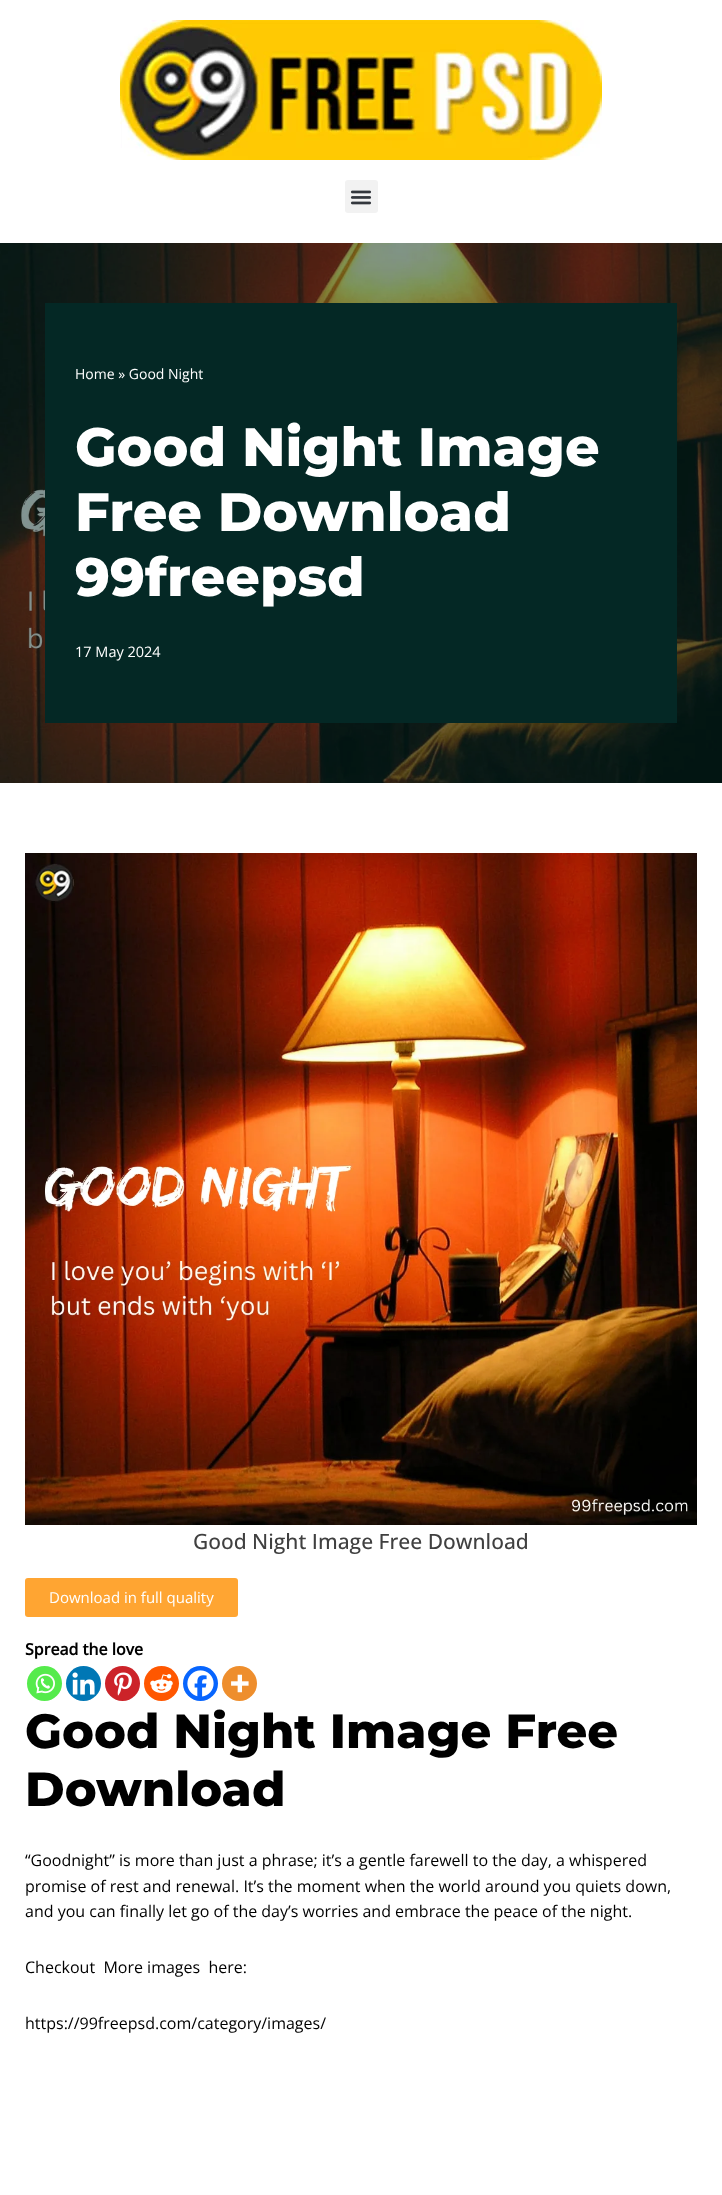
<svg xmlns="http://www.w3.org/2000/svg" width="722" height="2195">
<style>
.a{font:14px Open Sans;fill:#fff}
.b{font:800 54px Montserrat;fill:#fff}
.c{font:14.5px Open Sans;fill:#fff}
.d{font:500 21px Open Sans;fill:#404040}
.e{font:15px Open Sans;fill:#fff}
.f{font:bold 16px Open Sans;fill:#000}
.g{font:800 48px Montserrat;fill:#000}
.h{font:16px Open Sans;fill:#000}
</style>
<rect width="100%" height="100%" fill="#fff"/>
<image href="1.png" x="120" y="20" width="482" height="140"/>
<rect fill="#f2f2f2" x="345" y="180" width="33" height="33" rx="3"/>
<image href="2.png" x="350" y="190" width="22" height="15"/>
<image href="3.png" x="0" y="243" width="722" height="540"/>
<path fill="#042825" d="M45 303h632v420H45z"/>
<image href="4.png" x="25" y="853" width="672" height="672"/>
<rect fill="#ffa532" x="25" y="1578" width="213" height="39" rx="3"/>
<circle fill="#55eb4c" cx="44.5" cy="1683.5" r="17.5"/>
<image href="5.png" x="35" y="1673" width="20" height="21"/>
<circle fill="#0077b5" cx="83.5" cy="1683.5" r="17.5"/>
<image href="6.png" x="72" y="1672" width="23" height="23"/>
<circle fill="#cc2329" cx="122.5" cy="1683.5" r="17.5"/>
<image href="7.png" x="114" y="1672" width="18" height="24"/>
<circle fill="#ff5700" cx="161.5" cy="1683.5" r="17.5"/>
<image href="8.png" x="150" y="1674" width="23" height="19"/>
<circle fill="#0765fe" cx="200.5" cy="1683.5" r="17.5"/>
<image href="9.png" x="187" y="1670" width="27" height="27"/>
<circle fill="#ee8e2d" cx="239.5" cy="1683.5" r="17.5"/>
<image href="10.png" x="231" y="1674" width="18" height="19"/>
<text class="a" x="75" y="379">Home » Good Night</text>
<text class="b" x="75" y="466">Good Night Image</text>
<text class="b" x="75" y="531">Free Download</text>
<text class="b" x="75" y="596">99freepsd</text>
<text class="c" x="75" y="657">17 May 2024</text>
<text class="d" x="193" y="1549">Good Night Image Free Download</text>
<text class="e" x="49" y="1603">Download in full quality</text>
<text class="f" x="25" y="1655">Spread the love</text>
<text class="g" x="25" y="1748">Good Night Image Free</text>
<text class="g" x="25" y="1806">Download</text>
<text class="h" x="25" y="1866">“Goodnight” is more than just a phrase; it’s a gentle farewell to the day, a whispered</text>
<text class="h" x="25" y="1892">promise of rest and renewal. It’s the moment when the world around you quiets down,</text>
<text class="h" x="25" y="1917">and you can finally let go of the day’s worries and embrace the peace of the night.</text>
<text class="h" xml:space="preserve" x="25" y="1973">Checkout  More images  here:</text>
<text class="h" x="25" y="2029">https://99freepsd.com/category/images/</text>
</svg>
